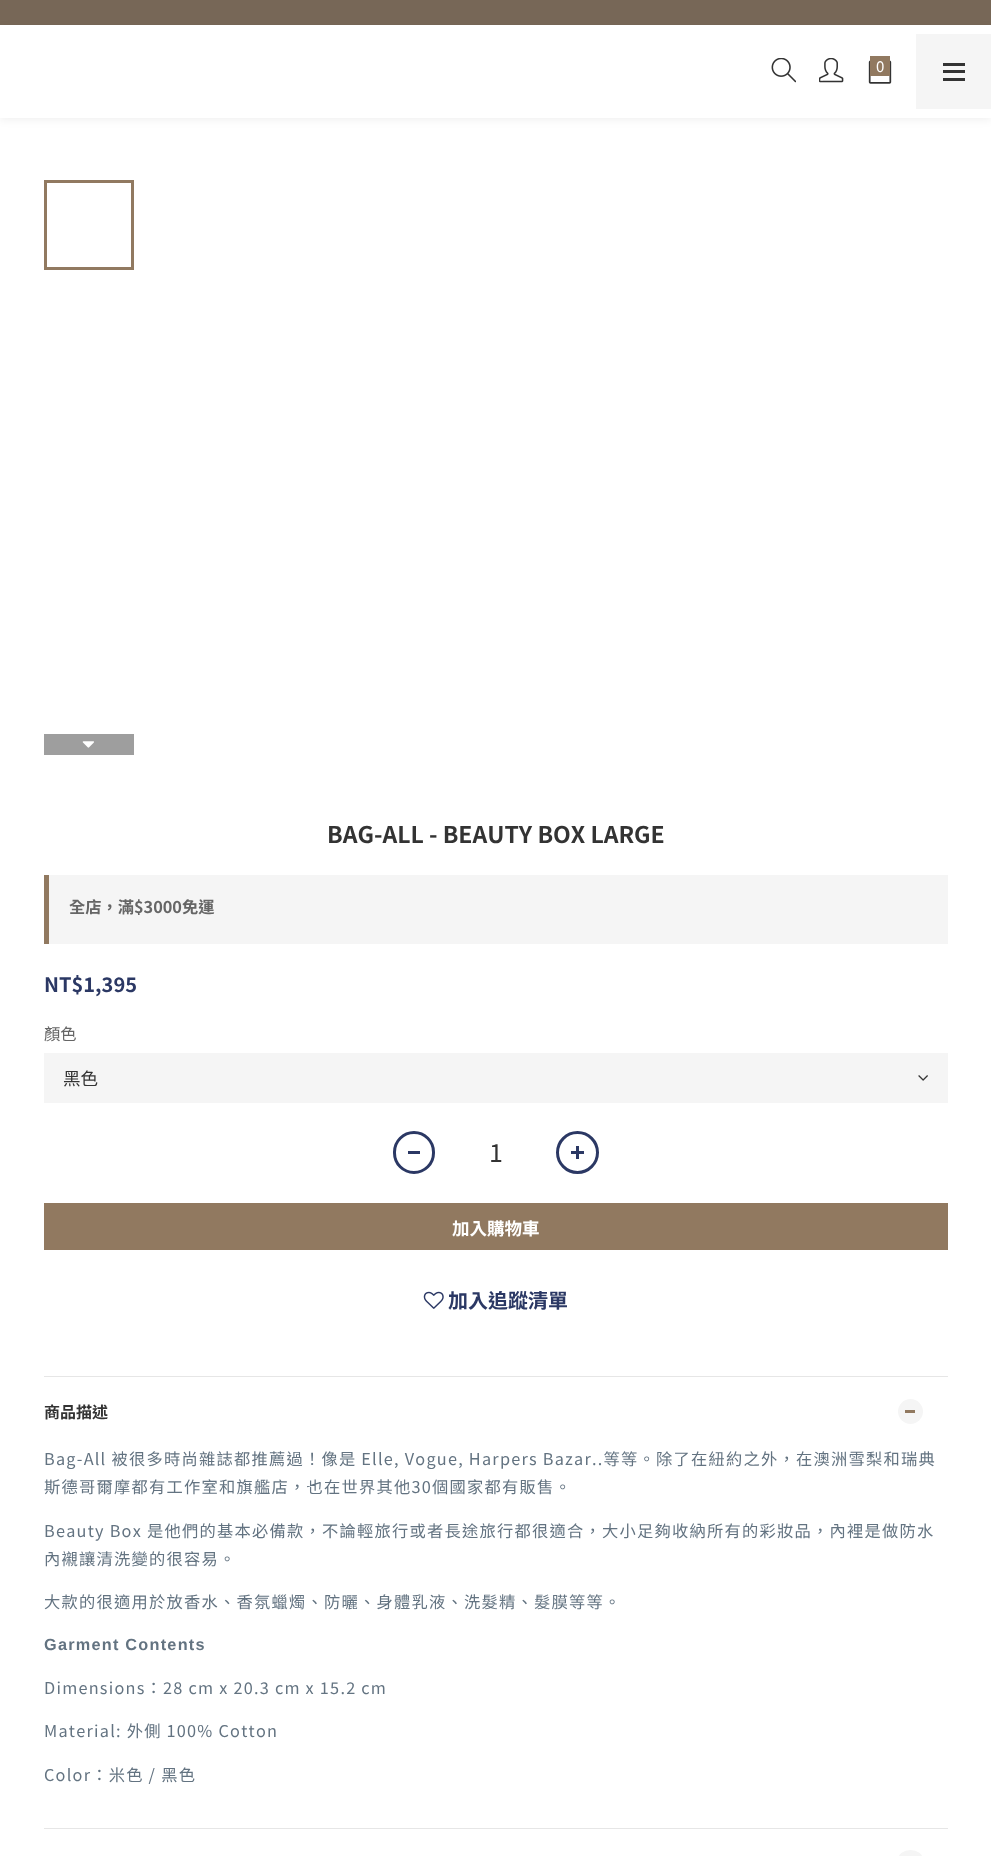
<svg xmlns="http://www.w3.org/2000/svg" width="991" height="1856">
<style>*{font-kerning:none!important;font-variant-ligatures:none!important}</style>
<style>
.a{font:15px Noto Sans TC;fill:#fff}
.b{font:bold 23px Noto Sans TC;fill:#333}
.c{font:bold 16.25px Noto Sans TC;fill:#666}
.d{font:bold 20px Noto Sans TC;fill:#2b3864}
.e{font:16.25px Noto Sans TC;fill:#666}
.f{font:17.5px Noto Sans TC;fill:#333}
.g{font:25px Noto Sans TC;fill:#333}
.h{font:bold 17.5px Noto Sans TC;fill:#fff}
.i{font:bold 16px Noto Sans TC;fill:#333}
.j{font:16.25px Noto Sans TC;letter-spacing:1.25px;fill:#637381}
.k{font:bold 16.25px Liberation Sans;letter-spacing:1.25px;fill:#637381}
</style>
<rect width="100%" height="100%" fill="#fff"/>
<path fill="#776757" d="M0 0h991v25H0z"/>
<path fill="#0000000f" filter="blur(4px)" d="M0 28h991v92H0z"/>
<path fill="#fff" d="M0 25h991v93H0z"/>
<image href="1.png" x="771" y="58" width="25" height="25"/>
<image href="2.png" x="819" y="58" width="25" height="25"/>
<image href="3.png" x="868" y="60" width="24" height="24"/>
<path fill="#917960" d="M870 56h20v20H870z"/>
<path fill="#f5f5f5" d="M916 34h75v75H916z"/>
<path fill="#333" d="M943 70h22v3H943z"/>
<path fill="#333" d="M943 63h22v3H943z"/>
<path fill="#333" d="M943 78h22v3H943z"/>
<path fill="none" stroke="#917960" stroke-width="3" d="M45.5 181.5h87v87H45.5z"/>
<path fill="#9e9e9e" d="M44 734h90v21H44z"/>
<image href="4.png" x="82" y="741" width="12" height="7"/>
<path fill="#f5f5f5" d="M49 875h899v69H49z"/>
<path fill="#917960" d="M44 875h5v69H44z"/>
<path fill="#f5f5f5" d="M44 1053h904v50H44z"/>
<image href="5.png" x="918" y="1075" width="10" height="6"/>
<rect fill="none" stroke="#2b3864" stroke-width="3" x="394.5" y="1132.5" width="39" height="40" rx="19.5"/>
<path fill="#2b3864" d="M408 1151h12v3H408z"/>
<circle fill="none" stroke="#2b3864" stroke-width="3" cx="577.5" cy="1152.5" r="20"/>
<path fill="#2b3864" d="M571 1151h13v3H571z"/>
<path fill="#2b3864" d="M576 1146h3v13H576z"/>
<path fill="#917960" d="M44 1203h904v47H44z"/>
<image href="6.png" x="423" y="1291" width="21" height="18"/>
<path fill="#e6e6e6" d="M44 1376h904v1H44z"/>
<circle fill="#f5f5f5" cx="910.5" cy="1411.5" r="12.5"/>
<path fill="#917960" d="M905 1410h10v3H905z"/>
<path fill="#e6e6e6" d="M44 1828h904v1H44z"/>
<rect fill="#f5f5f5" x="898" y="1850" width="25" height="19" rx="12.5"/>
<text class="a" x="876" y="72">0</text>
<text class="b" x="327" y="843">BAG-ALL - BEAUTY BOX LARGE</text>
<text class="c" x="69" y="913">全店，滿$3000免運</text>
<text class="d" x="44" y="992">NT$1,395</text>
<text class="e" x="44" y="1040">顏色</text>
<text class="f" x="63" y="1085">黑色</text>
<text class="g" x="489" y="1162">1</text>
<text class="h" x="452" y="1235">加入購物車</text>
<text class="d" x="448" y="1308">加入追蹤清單</text>
<text class="i" x="44" y="1418">商品描述</text>
<text class="j" x="44" y="1465">Bag-All 被很多時尚雜誌都推薦過！像是 Elle, Vogue, Harpers Bazar..等等。除了在紐約之外，在澳洲雪梨和瑞典</text>
<text class="j" x="44" y="1493">斯德哥爾摩都有工作室和旗艦店，也在世界其他30個國家都有販售。</text>
<text class="j" x="44" y="1537">Beauty Box 是他們的基本必備款，不論輕旅行或者長途旅行都很適合，大小足夠收納所有的彩妝品，內裡是做防水</text>
<text class="j" x="44" y="1565">內襯讓清洗變的很容易。</text>
<text class="j" x="44" y="1608">大款的很適用於放香水、香氛蠟燭、防曬、身體乳液、洗髮精、髮膜等等。</text>
<text class="k" x="44" y="1650">Garment Contents</text>
<text class="j" x="44" y="1694">Dimensions：28 cm x 20.3 cm x 15.2 cm</text>
<text class="j" x="44" y="1737">Material: 外側 100% Cotton</text>
<text class="j" x="44" y="1781">Color：米色 / 黑色</text>
</svg>
